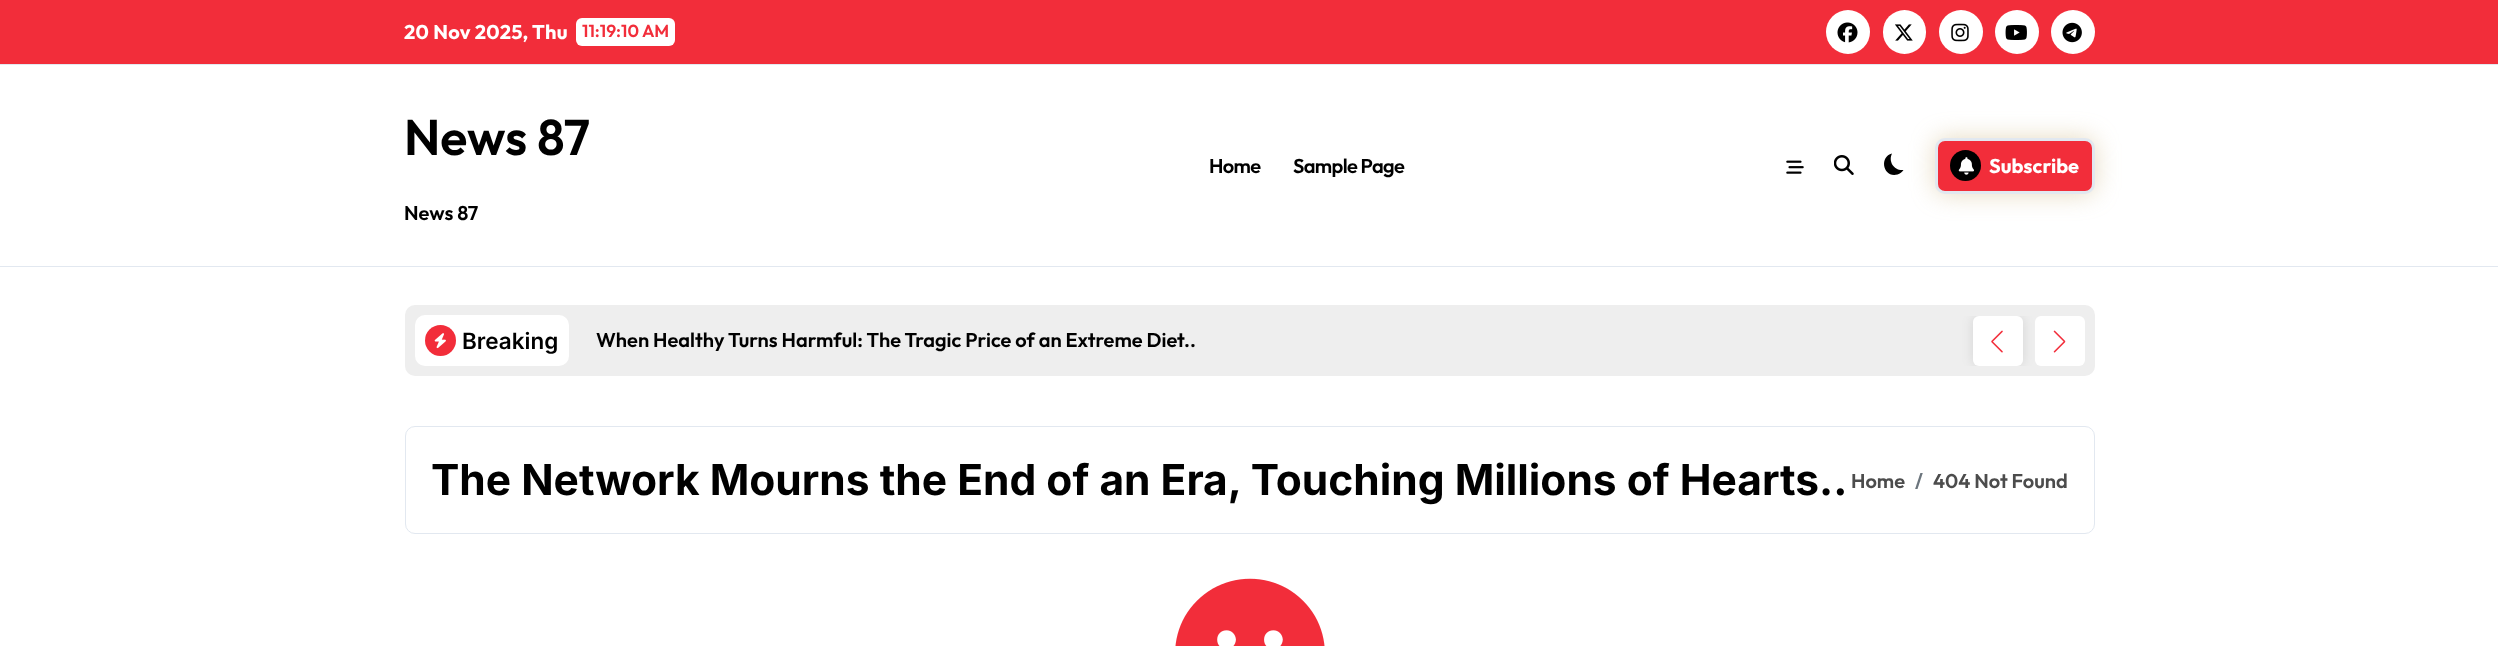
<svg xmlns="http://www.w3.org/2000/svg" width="2498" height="646">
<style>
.a{font:bold 20px Outfit;letter-spacing:0.25px;fill:#fff}
.b{font:600 17.5px Outfit;fill:#f22d3a}
.c{font:600 50px Outfit;fill:#000}
.d{font:600 20px Outfit;fill:#000}
.e{font:600 20px Outfit;letter-spacing:-0.6px;fill:#000}
.f{font:bold 20px Outfit;fill:#fff}
.g{font:600 22.5px Inter;fill:#000}
.h{font:bold 42.5px Inter;fill:#000}
.i{font:600 20px Outfit;fill:#4c4c4c}
.j{font:600 20px Outfit;fill:#6c757d}
</style>
<defs>
<clipPath id="clip1"><path d="M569 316h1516v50H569z"/></clipPath>
</defs>
<rect width="100%" height="100%" fill="#fff"/>
<path fill="#e2e8f0" d="M0 266h2498v1H0z"/>
<path fill="#f22d3a" d="M0 0h2498v64H0z"/>
<path fill="#e2e8f0" d="M0 64h2498v1H0z"/>
<rect fill="#fff" x="576" y="18" width="99" height="28" rx="6"/>
<circle fill="#fff" cx="1848" cy="32" r="22"/>
<image href="1.png" x="1837" y="22" width="21" height="21"/>
<rect fill="#fff" x="1883" y="10" width="43" height="44" rx="21.5"/>
<image href="2.png" x="1895" y="24" width="18" height="17"/>
<circle fill="#fff" cx="1961" cy="32" r="22"/>
<image href="3.png" x="1951" y="23" width="18" height="19"/>
<circle fill="#fff" cx="2017" cy="32" r="22"/>
<image href="4.png" x="2005" y="25" width="22" height="15"/>
<circle fill="#fff" cx="2073" cy="32" r="22"/>
<image href="5.png" x="2062" y="22" width="20" height="21"/>
<image href="6.png" x="1786" y="160" width="18" height="14"/>
<image href="7.png" x="1834" y="155" width="20" height="20"/>
<path fill="#000" d="M1903.5 170c-9.5 1-15.5-8.5-11.5-16.5c-13.5 3.5-8.5 25 5.5 21c2.5-.5 4.5-2.5 6-4.5z"/>
<rect fill="#c1a36266" filter="blur(12.5px)" x="1935" y="138" width="160" height="56" rx="10"/>
<rect fill="#f22d3a" stroke="#e2e8f0" stroke-width="3" x="1936.5" y="139.5" width="157" height="53" rx="8.5"/>
<circle fill="#000" cx="1965.5" cy="165.5" r="15.5"/>
<image href="8.png" x="1958" y="157" width="16" height="18"/>
<rect fill="#eee" x="405" y="305" width="1690" height="71" rx="10"/>
<rect fill="#fff" x="415" y="315" width="154" height="51" rx="10"/>
<circle fill="#f22d3a" cx="440.5" cy="340.5" r="15.5"/>
<image href="9.png" x="434" y="333" width="12" height="16"/>
<rect fill="#fff" x="2035" y="316" width="50" height="50" rx="6"/>
<g clip-path="url(#clip1)">
<rect fill="#0000001a" filter="blur(6px)" x="1973" y="316" width="50" height="50" rx="6"/>
</g>
<rect fill="#fff" x="1973" y="316" width="50" height="50" rx="6"/>
<image href="10.png" x="1991" y="330" width="12" height="23"/>
<image href="11.png" x="2053" y="330" width="13" height="23"/>
<rect fill="none" stroke="#e2e8f0" x="405.5" y="426.5" width="1689" height="107" rx="9.5"/>
<image href="12.png" x="1175" y="578" width="150" height="68"/>
<text class="a" x="404" y="39">20 Nov 2025, Thu</text>
<text class="b" x="582" y="37">11:19:10 AM</text>
<text class="c" x="404" y="155">News 87</text>
<text class="d" x="404" y="220">News 87</text>
<text class="e" x="1209" y="173">Home</text>
<text class="e" x="1293" y="173">Sample Page</text>
<text class="f" x="1989" y="173">Subscribe</text>
<text class="g" x="462" y="349">Breaking</text>
<text class="d" x="596" y="347">When Healthy Turns Harmful: The Tragic Price of an Extreme Diet..</text>
<text class="h" x="431" y="495">The Network Mourns the End of an Era, Touching Millions of Hearts..</text>
<text class="i" x="1851" y="488">Home</text>
<text class="j" x="1915" y="488">/</text>
<text class="i" x="1933" y="488">404 Not Found</text>
</svg>
